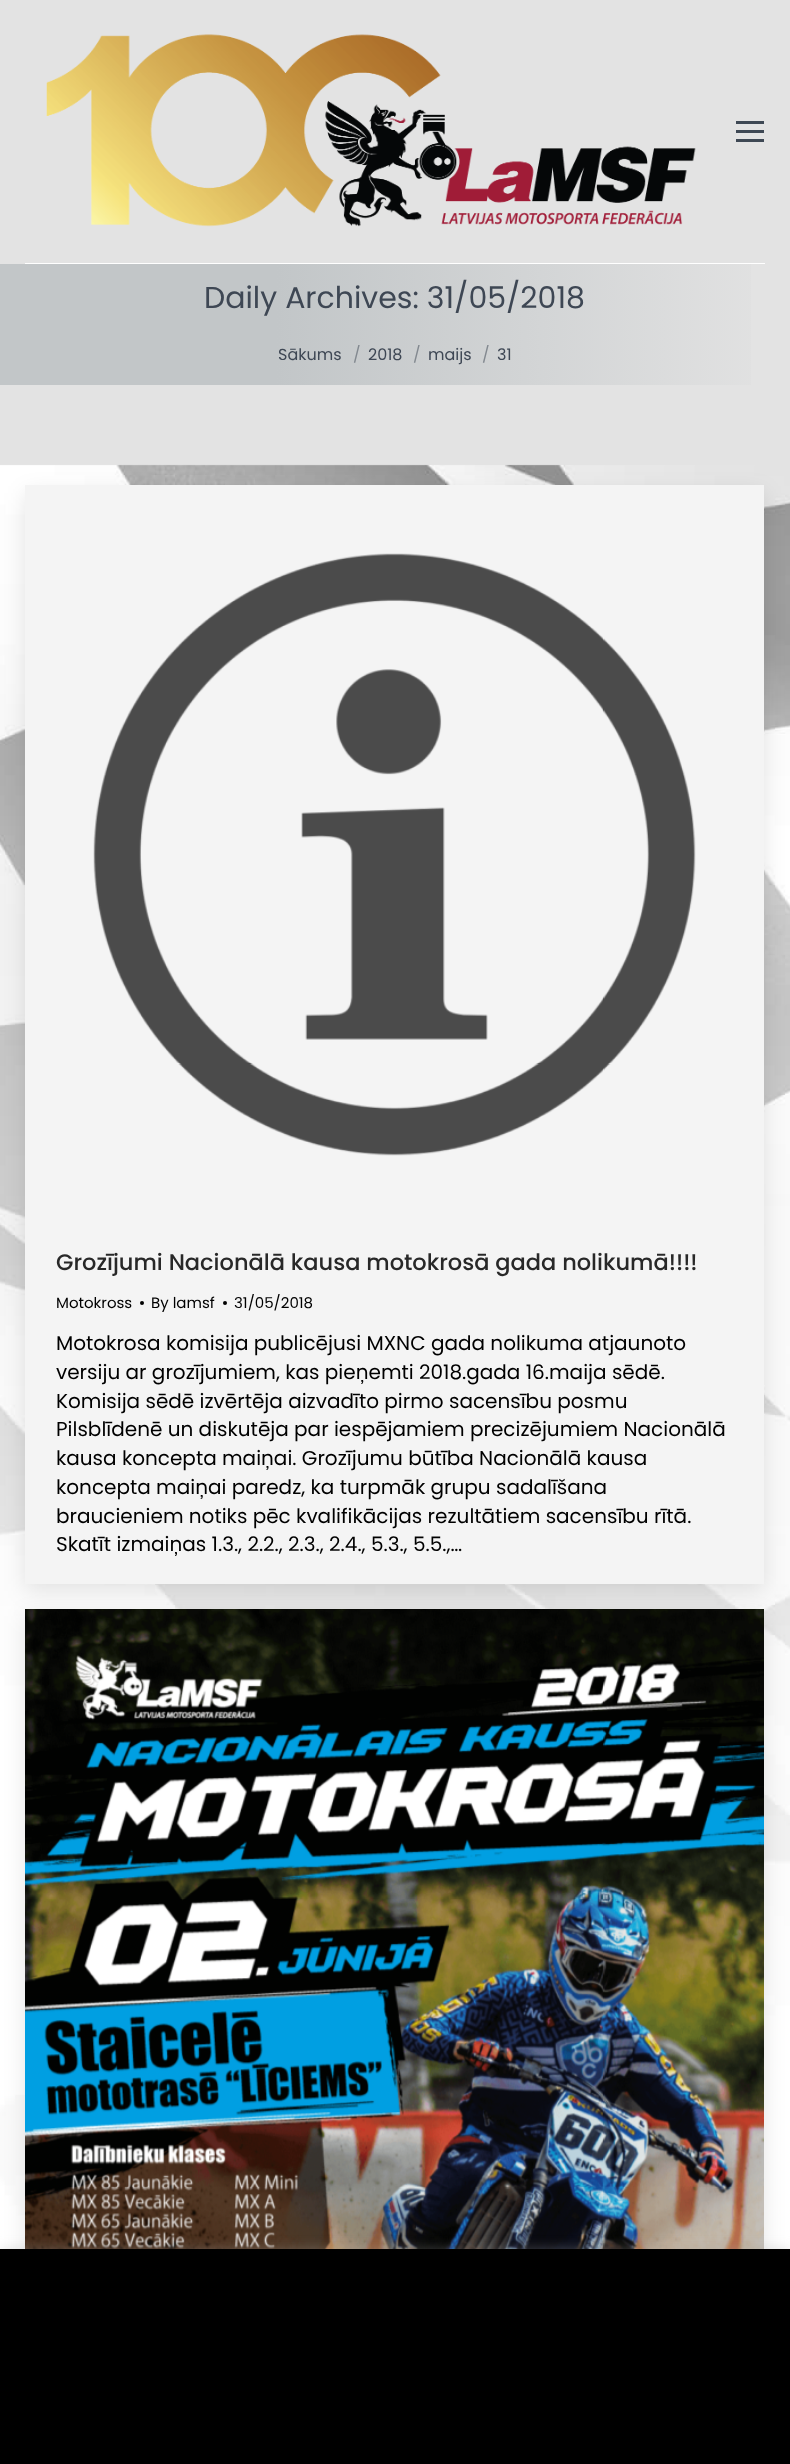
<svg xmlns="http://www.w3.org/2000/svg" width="790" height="2464">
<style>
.a{font:30px Poppins;fill:#3e4754}
.b{font:16px Poppins;fill:#3e4754}
.c{font:16px Poppins;fill:#838990}
.d{font:500 22.5px Poppins;fill:#282828}
.e{font:15px Poppins;fill:#000}
.f{font:20px Poppins;fill:#000}
</style>
<defs>
<linearGradient id="g1" gradientUnits="userSpaceOnUse" x1="0" y1="324" x2="790" y2="324"><stop offset="0.35" stop-color="#c2c6c8"/><stop offset="1" stop-color="#e3e3e3"/></linearGradient>
</defs>
<rect width="100%" height="100%" fill="#e3e3e3"/>
<image href="1.png" x="46" y="34" width="650" height="193"/>
<path fill="#3e4854" d="M736 121h28v3H736z"/>
<path fill="#3e4854" d="M736 130h28v3H736z"/>
<path fill="#3e4854" d="M736 139h28v3H736z"/>
<path fill="#fff" d="M25 263h740v1H25z"/>
<path fill="url(#g1)" d="M0 264h751v121H0z"/>
<image href="2.png" x="0" y="464" width="790" height="1785"/>
<path fill="#0000001a" filter="blur(11px)" d="M25 493h739v1098H25z"/>
<path fill="#f4f4f4" d="M25 485h739v1099H25z"/>
<image href="3.png" x="93" y="553" width="603" height="603"/>
<circle fill="#000" cx="142" cy="1303" r="2"/>
<circle fill="#000" cx="225" cy="1303" r="2"/>
<path fill="#0000001a" filter="blur(11px)" d="M25 1616h739v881H25z"/>
<image href="4.png" x="25" y="1609" width="739" height="640"/>
<path fill="#acabab4d" filter="blur(6px)" d="M0 2248h790v216H0z"/>
<path fill="#000" d="M0 2249h790v215H0z"/>
<text class="a" x="204" y="308">Daily Archives: 31/05/2018</text>
<text class="b" x="278" y="360">Sākums</text>
<text class="c" x="353" y="360">/</text>
<text class="b" x="368" y="360">2018</text>
<text class="c" x="413" y="360">/</text>
<text class="b" x="428" y="360">maijs</text>
<text class="c" x="482" y="360">/</text>
<text class="b" x="497" y="360">31</text>
<text class="d" x="56" y="1270">Grozījumi Nacionālā kausa motokrosā gada nolikumā!!!!</text>
<text class="e" x="56" y="1308">Motokross</text>
<text class="e" x="151" y="1308">By lamsf</text>
<text class="e" x="234" y="1308">31/05/2018</text>
<text class="f" x="56" y="1350">Motokrosa komisija publicējusi MXNC gada nolikuma atjaunoto</text>
<text class="f" x="56" y="1379">versiju ar grozījumiem, kas pieņemti 2018.gada 16.maija sēdē.</text>
<text class="f" x="56" y="1408">Komisija sēdē izvērtēja aizvadīto pirmo sacensību posmu</text>
<text class="f" x="56" y="1436">Pilsblīdenē un diskutēja par iespējamiem precizējumiem Nacionālā</text>
<text class="f" x="56" y="1465">kausa koncepta maiņai. Grozījumu būtība Nacionālā kausa</text>
<text class="f" x="56" y="1494">koncepta maiņai paredz, ka turpmāk grupu sadalīšana</text>
<text class="f" x="56" y="1523">braucieniem notiks pēc kvalifikācijas rezultātiem sacensību rītā.</text>
<text class="f" x="56" y="1551">Skatīt izmaiņas 1.3., 2.2., 2.3., 2.4., 5.3., 5.5.,…</text>
</svg>
